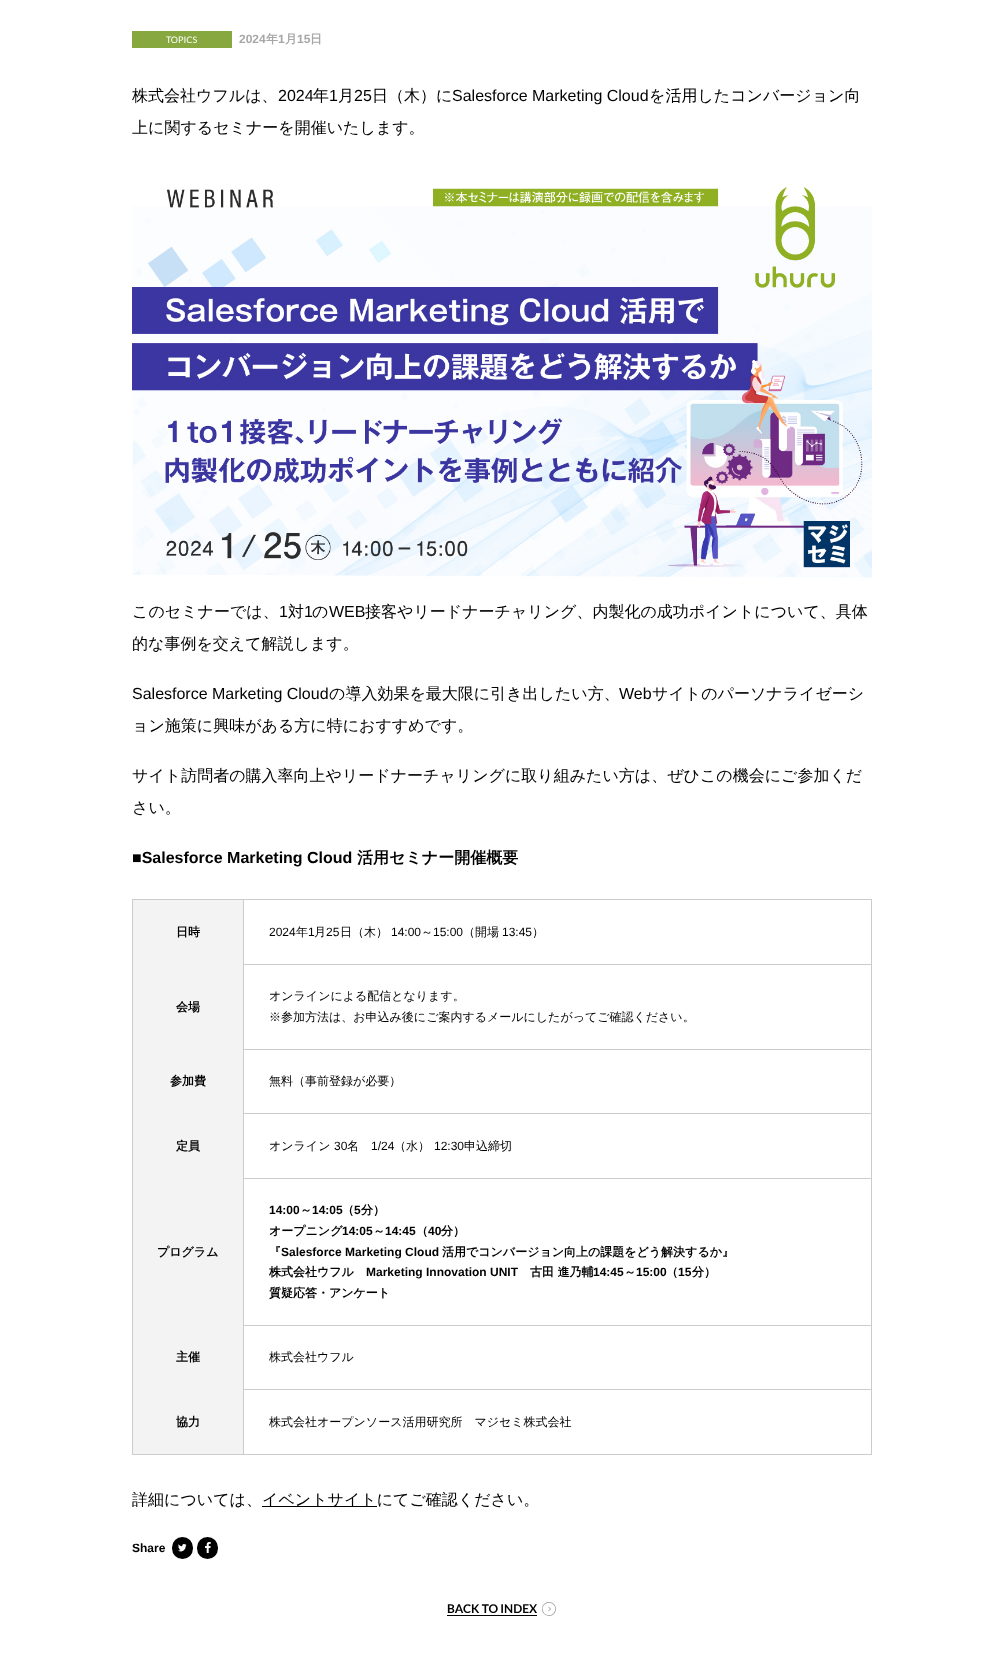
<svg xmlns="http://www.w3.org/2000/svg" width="1004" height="1663">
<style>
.a{font:9px Lato;fill:#fff}
.b{font:bold 12px Liberation Sans;fill:#a7a7a7}
.c{font:bold 12px WenQuanYi Zen Hei;fill:#a7a7a7}
.d{font:500 16px WenQuanYi Zen Hei;fill:#000}
.e{font:16px Liberation Sans;fill:#000}
.f{font:bold 16px Liberation Sans;fill:#000}
.g{font:bold 16px WenQuanYi Zen Hei;fill:#000}
.h{font:bold 12px WenQuanYi Zen Hei;fill:#000}
.i{font:12px Liberation Sans;fill:#000}
.j{font:500 12px WenQuanYi Zen Hei;fill:#000}
.k{font:bold 12px Liberation Sans;fill:#000}
.l{font:bold 12px Lato;fill:#000}
</style>
<rect width="100%" height="100%" fill="#fff"/>
<path fill="#87a73f" d="M132 31h100v17H132z"/>
<image href="1.png" x="132" y="187" width="740" height="391"/>
<path fill="#ccc" d="M132 899h740v1H132z"/>
<path fill="#ccc" d="M871 899h1v556H871z"/>
<path fill="#ccc" d="M132 899h1v556H132z"/>
<path fill="#ccc" d="M132 964h740v1H132z"/>
<path fill="#ccc" d="M132 1049h740v1H132z"/>
<path fill="#ccc" d="M132 1113h740v1H132z"/>
<path fill="#ccc" d="M132 1178h740v1H132z"/>
<path fill="#ccc" d="M132 1325h740v1H132z"/>
<path fill="#ccc" d="M132 1389h740v1H132z"/>
<path fill="#f3f3f3" d="M133 900h110v554H133z"/>
<path fill="#ccc" d="M132 1454h740v1H132z"/>
<path fill="#ccc" d="M243 899h1v556H243z"/>
<path fill="#000" d="M262 1506h115v1H262z"/>
<rect fill="#000" x="172" y="1537" width="21" height="22" rx="10.5"/>
<image href="2.png" x="178" y="1544" width="9" height="8"/>
<rect fill="#000" x="197" y="1537" width="21" height="22" rx="10.5"/>
<image href="3.png" x="205" y="1542" width="6" height="11"/>
<path fill="#010101" d="M447 1615h90v1H447z"/>
<image href="4.png" x="542" y="1602" width="14" height="14"/>
<text class="a" x="166" y="43">TOPICS</text>
<text class="b" x="239" y="43">2024</text>
<text class="c" x="266" y="43">年</text>
<text class="b" x="278" y="43">1</text>
<text class="c" x="285" y="43">月</text>
<text class="b" x="297" y="43">15</text>
<text class="c" x="310" y="43">日</text>
<text class="d" x="132" y="101">株式会社ウフルは、</text>
<text class="e" x="278" y="101">2024</text>
<text class="d" x="313" y="101">年</text>
<text class="e" x="329" y="101">1</text>
<text class="d" x="338" y="101">月</text>
<text class="e" x="354" y="101">25</text>
<text class="d" x="372" y="101">日（木）に</text>
<text class="e" x="452" y="101">Salesforce Marketing Cloud</text>
<text class="d" x="649" y="101">を活用したコンバージョン向</text>
<text class="d" x="132" y="133">上に関するセミナーを開催いたします。</text>
<text class="d" x="132" y="617">このセミナーでは、</text>
<text class="e" x="279" y="617">1</text>
<text class="d" x="288" y="617">対</text>
<text class="e" x="304" y="617">1</text>
<text class="d" x="312" y="617">の</text>
<text class="e" x="329" y="617">WEB</text>
<text class="d" x="365" y="617">接客やリードナーチャリング、内製化の成功ポイントについて、具体</text>
<text class="d" x="132" y="649">的な事例を交えて解説します。</text>
<text class="e" x="132" y="699">Salesforce Marketing Cloud</text>
<text class="d" x="329" y="699">の導入効果を最大限に引き出したい方、</text>
<text class="e" x="619" y="699">Web</text>
<text class="d" x="652" y="699">サイトのパーソナライゼーシ</text>
<text class="d" x="132" y="731">ョン施策に興味がある方に特におすすめです。</text>
<text class="d" x="132" y="781">サイト訪問者の購入率向上やリードナーチャリングに取り組みたい方は、ぜひこの機会にご参加くだ</text>
<text class="d" x="132" y="813">さい。</text>
<text class="f" x="132" y="863">■Salesforce Marketing Cloud</text>
<text class="g" x="357" y="863">活用セミナー開催概要</text>
<text class="h" x="176" y="936">日時</text>
<text class="i" x="269" y="936">2024</text>
<text class="j" x="296" y="936">年</text>
<text class="i" x="308" y="936">1</text>
<text class="j" x="314" y="936">月</text>
<text class="i" x="326" y="936">25</text>
<text class="j" x="340" y="936">日（木）</text>
<text class="i" x="391" y="936">14:00</text>
<text class="j" x="421" y="936">～</text>
<text class="i" x="433" y="936">15:00</text>
<text class="j" x="463" y="936">（開場</text>
<text class="i" x="502" y="936">13:45</text>
<text class="j" x="532" y="936">）</text>
<text class="h" x="176" y="1011">会場</text>
<text class="j" x="269" y="1000">オンラインによる配信となります。</text>
<text class="j" x="269" y="1021">※参加方法は、お申込み後にご案内するメールにしたがってご確認ください。</text>
<text class="h" x="170" y="1085">参加費</text>
<text class="j" x="269" y="1085">無料（事前登録が必要）</text>
<text class="h" x="176" y="1150">定員</text>
<text class="j" x="269" y="1150">オンライン</text>
<text class="i" x="334" y="1150">30</text>
<text class="j" x="347" y="1150">名</text>
<text class="i" x="371" y="1150">1/24</text>
<text class="j" x="394" y="1150">（水）</text>
<text class="i" x="434" y="1150">12:30</text>
<text class="j" x="464" y="1150">申込締切</text>
<text class="h" x="157" y="1256">プログラム</text>
<text class="k" x="269" y="1214">14:00</text>
<text class="h" x="300" y="1214">～</text>
<text class="k" x="312" y="1214">14:05</text>
<text class="h" x="342" y="1214">（</text>
<text class="k" x="354" y="1214">5</text>
<text class="h" x="361" y="1214">分）</text>
<text class="h" x="269" y="1235">オープニング</text>
<text class="k" x="342" y="1235">14:05</text>
<text class="h" x="373" y="1235">～</text>
<text class="k" x="385" y="1235">14:45</text>
<text class="h" x="416" y="1235">（</text>
<text class="k" x="428" y="1235">40</text>
<text class="h" x="441" y="1235">分）</text>
<text class="h" x="269" y="1256">『</text>
<text class="k" x="281" y="1256">Salesforce Marketing Cloud</text>
<text class="h" x="442" y="1256">活用でコンバージョン向上の課題をどう解決するか』</text>
<text class="h" x="269" y="1276">株式会社ウフル</text>
<text class="k" x="366" y="1276">Marketing Innovation UNIT</text>
<text class="h" x="530" y="1276">古田 進乃輔</text>
<text class="k" x="593" y="1276">14:45</text>
<text class="h" x="624" y="1276">～</text>
<text class="k" x="636" y="1276">15:00</text>
<text class="h" x="666" y="1276">（</text>
<text class="k" x="678" y="1276">15</text>
<text class="h" x="692" y="1276">分）</text>
<text class="h" x="269" y="1297">質疑応答・アンケート</text>
<text class="h" x="176" y="1361">主催</text>
<text class="j" x="269" y="1361">株式会社ウフル</text>
<text class="h" x="176" y="1426">協力</text>
<text class="j" x="269" y="1426">株式会社オープンソース活用研究所　マジセミ株式会社</text>
<text class="d" x="132" y="1505">詳細については、</text>
<text class="d" x="262" y="1505">イベントサイトにてご確認ください。</text>
<text class="k" x="132" y="1552">Share</text>
<text class="l" x="447" y="1613">BACK TO INDEX</text>
</svg>
